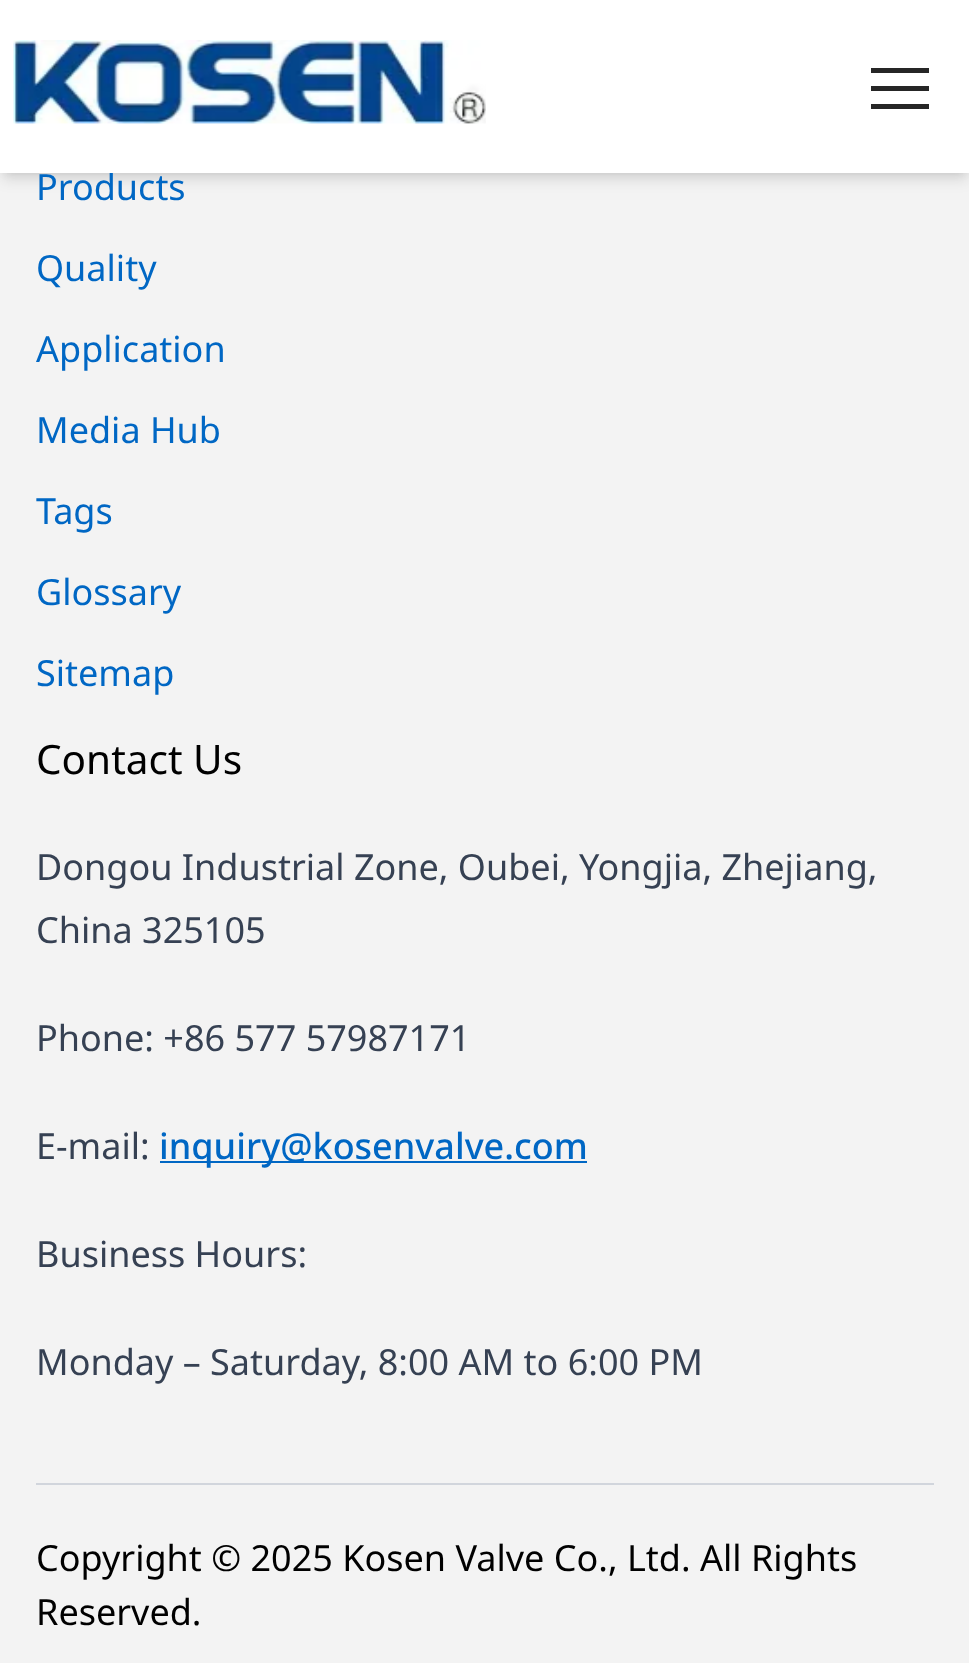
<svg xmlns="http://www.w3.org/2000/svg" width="969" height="1663">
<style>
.a{font:36px Noto Sans;fill:#0067c4}
.b{font:40.5px Noto Sans;fill:#000}
.c{font:36px Noto Sans;fill:#364153}
.d{font:500 36px Noto Sans;fill:#0067c4}
.e{font:36px Noto Sans;fill:#000}
</style>
<rect width="100%" height="100%" fill="#f3f3f3"/>
<path fill="#0000001a" filter="blur(4.5px)" d="M5 9h960v164H5z"/>
<path fill="#0000001a" filter="blur(7px)" d="M2 11h966v169H2z"/>
<path fill="#0067c4" d="M160 1161h427v2H160z"/>
<path fill="#d1d5dc" d="M36 1483h898v2H36z"/>
<text class="a" x="36" y="200">Products</text>
<path fill="#fff" d="M0 0h969v173H0z"/>
<path fill="#262626" d="M871 104h58v5H871z"/>
<path fill="#262626" d="M871 86h58v5H871z"/>
<path fill="#262626" d="M871 68h58v5H871z"/>
<image href="1.png" x="13" y="40" width="473" height="84"/>
<text class="a" x="36" y="281">Quality</text>
<text class="a" x="36" y="362">Application</text>
<text class="a" x="36" y="443">Media Hub</text>
<text class="a" x="36" y="524">Tags</text>
<text class="a" x="36" y="605">Glossary</text>
<text class="a" x="36" y="686">Sitemap</text>
<text class="b" x="36" y="774">Contact Us</text>
<text class="c" x="36" y="880">Dongou Industrial Zone, Oubei, Yongjia, Zhejiang,</text>
<text class="c" x="36" y="943">China 325105</text>
<text class="c" x="36" y="1051">Phone: +86 577 57987171</text>
<text class="c" x="36" y="1159">E-mail:</text>
<text class="d" x="159" y="1159">inquiry@kosenvalve.com</text>
<text class="c" x="36" y="1267">Business Hours:</text>
<text class="c" x="36" y="1375">Monday – Saturday, 8:00 AM to 6:00 PM</text>
<text class="e" x="36" y="1571">Copyright © 2025 Kosen Valve Co., Ltd. All Rights</text>
<text class="e" x="36" y="1625">Reserved.</text>
</svg>
